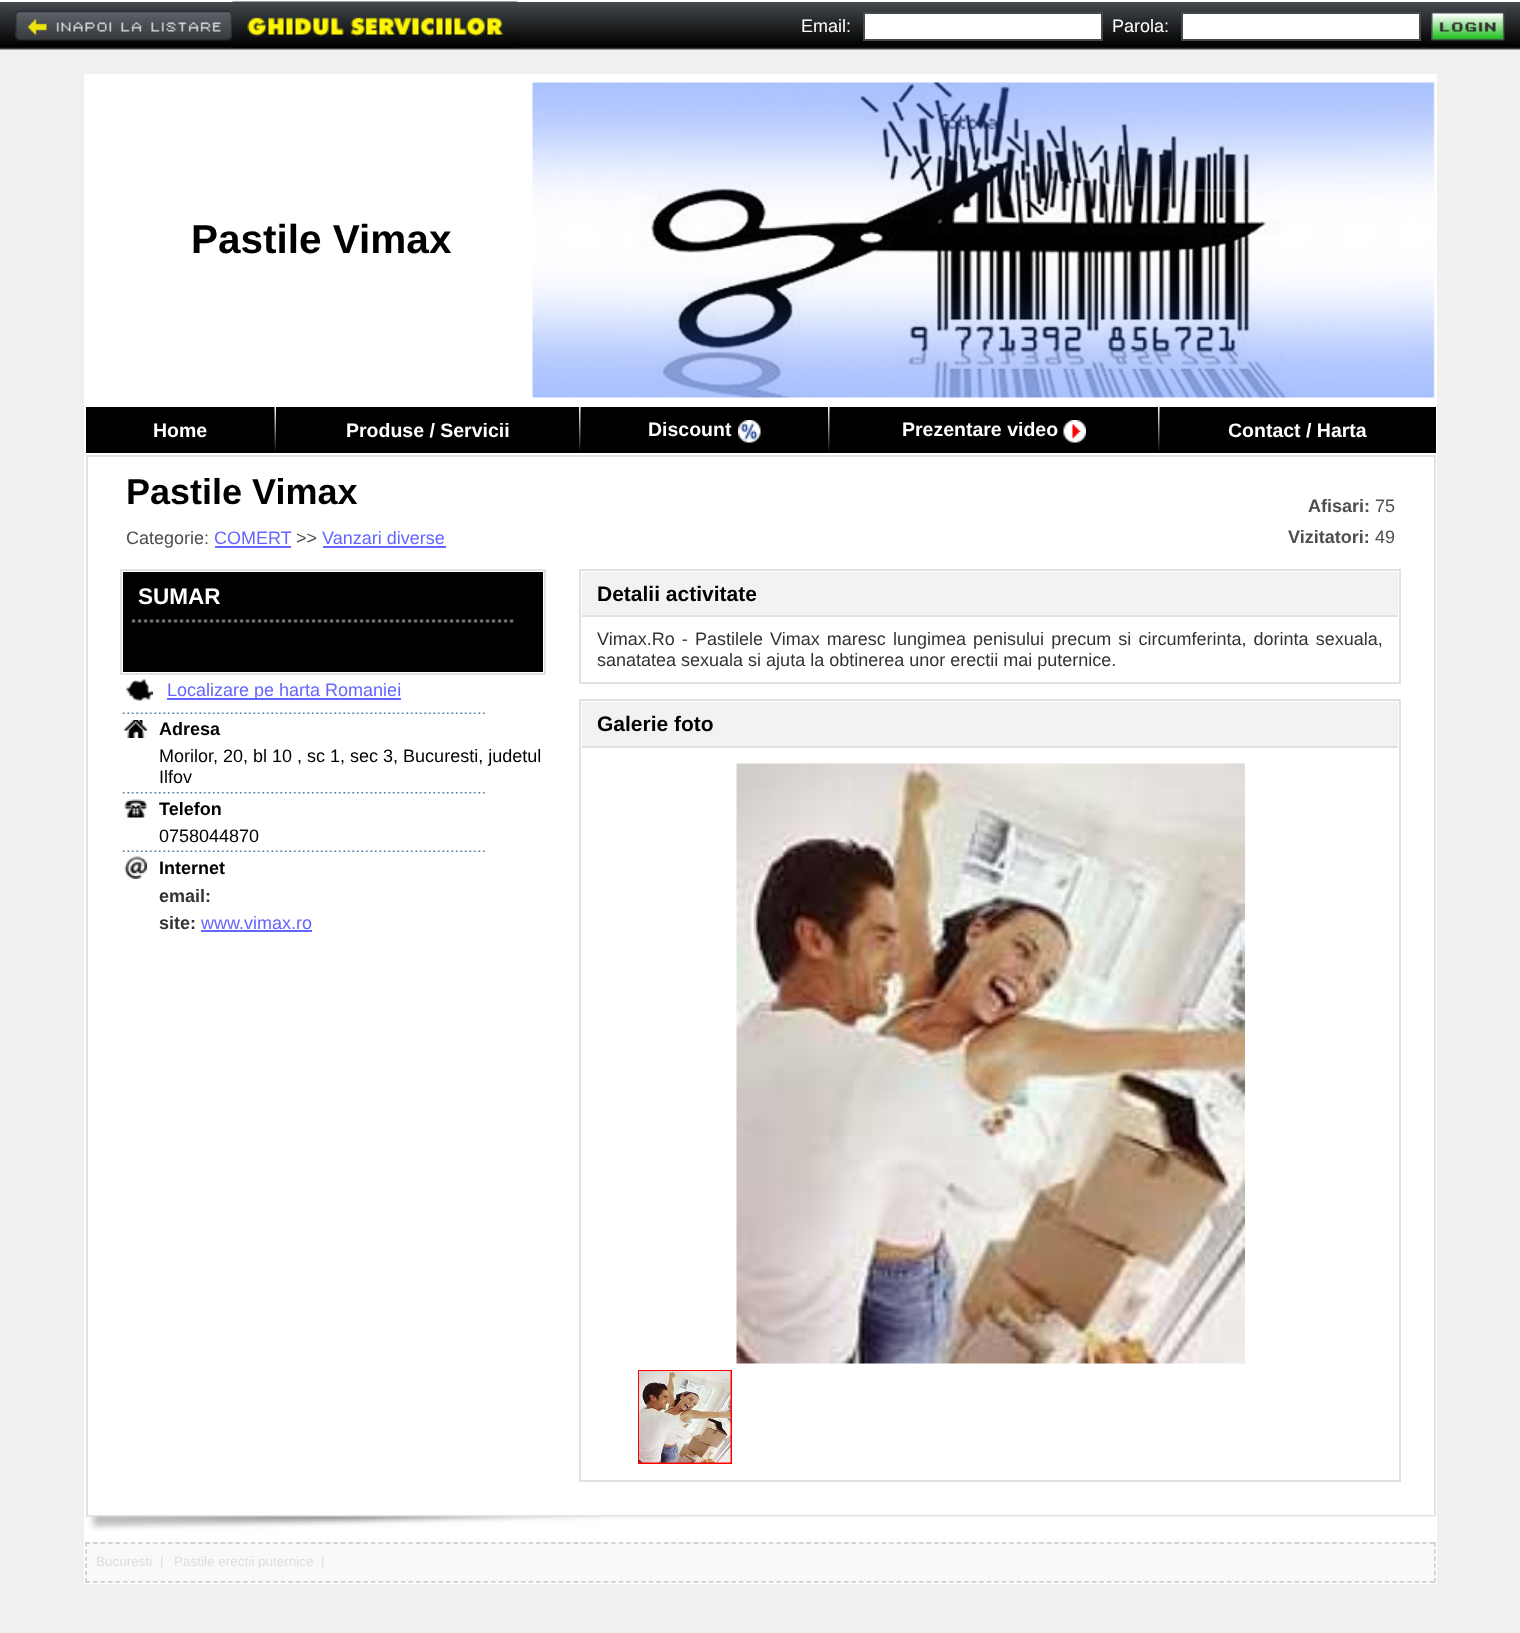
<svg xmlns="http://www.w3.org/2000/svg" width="1520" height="1633">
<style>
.a{font:18px Liberation Sans;fill:#fff}
.b{font:bold 40.5px Liberation Sans;fill:#000}
.c{font:bold 19.5px Liberation Sans;fill:#fff}
.d{font:bold 36px Liberation Sans;fill:#000}
.e{font:bold 18px Liberation Sans;fill:#4e4e4e}
.f{font:18px Liberation Sans;fill:#4e4e4e}
.g{font:18px Liberation Sans;fill:#6464ff}
.h{font:bold 22.5px Liberation Sans;fill:#fff}
.i{font:bold 18px Liberation Sans;fill:#000}
.j{font:18px Liberation Sans;fill:#000}
.k{font:bold 18px Liberation Sans;fill:#333}
.l{font:bold 21px Liberation Sans;fill:#000}
.m{font:18px Liberation Sans;fill:#333}
.n{font:13.5px Liberation Sans;fill:#ddd}
</style>
<rect width="100%" height="100%" fill="#f0f0f0"/>
<image href="1.png" x="0" y="2" width="1520" height="48"/>
<path fill="#fff" d="M0 0h1520v2H0z"/>
<image href="2.png" x="15" y="10" width="218" height="31"/>
<image href="3.png" x="232" y="1" width="286" height="47"/>
<path fill="#fff" stroke="#44494d" stroke-width="2" d="M864 13h238v27H864z"/>
<path fill="#fff" stroke="#44494d" stroke-width="2" d="M1182 13h238v27H1182z"/>
<image href="4.png" x="1431" y="12" width="74" height="29"/>
<path fill="none" stroke="#fff" stroke-width="2" d="M85 75h1351v1508H85z"/>
<path fill="#fff" d="M86 76h1349v329H86z"/>
<image href="5.png" x="532" y="81" width="904" height="318"/>
<path fill="#fff" d="M86 405h1350v2H86z"/>
<path fill="#fff" d="M86 453h1350v2H86z"/>
<path fill="#000" d="M86 407h1350v46H86z"/>
<image href="6.png" x="274" y="407" width="2" height="44"/>
<image href="7.png" x="579" y="407" width="2" height="44"/>
<image href="8.png" x="738" y="420" width="23" height="23"/>
<image href="7.png" x="828" y="407" width="2" height="44"/>
<image href="9.png" x="1063" y="420" width="23" height="23"/>
<image href="7.png" x="1158" y="407" width="2" height="44"/>
<path fill="#fff" d="M88 457h1346v1058H88z"/>
<path fill="#e1e1e1" d="M86 455h1350v2H86z"/>
<path fill="#e1e1e1" d="M1434 455h2v1060H1434z"/>
<path fill="#e1e1e1" d="M86 455h2v1060H86z"/>
<path fill="#6464ff" d="M215 546h76v2H215z"/>
<path fill="#6464ff" d="M323 546h123v2H323z"/>
<path fill="none" stroke="#e1e1e1" stroke-width="2" d="M121 570h424v104H121z"/>
<path fill="#000" d="M123 572h420v100H123z"/>
<image href="10.png" x="131" y="619" width="383" height="4"/>
<image href="11.png" x="126" y="679" width="27" height="22"/>
<path fill="#6464ff" d="M167 698h234v2H167z"/>
<image href="12.png" x="122" y="712" width="363" height="2"/>
<image href="13.png" x="124" y="720" width="23" height="18"/>
<image href="14.png" x="122" y="792" width="363" height="2"/>
<image href="15.png" x="124" y="799" width="23" height="19"/>
<image href="12.png" x="122" y="850" width="363" height="2"/>
<image href="16.png" x="124" y="856" width="23" height="23"/>
<path fill="#6464ff" d="M201 930h111v2H201z"/>
<path fill="none" stroke="#e1e1e1" stroke-width="2" d="M580 570h820v113H580z"/>
<path fill="#f2f2f2" d="M582 572h816v43H582z"/>
<path fill="#e1e1e1" d="M582 615h816v2H582z"/>
<path fill="none" stroke="#e1e1e1" stroke-width="2" d="M580 700h820v781H580z"/>
<path fill="#f2f2f2" d="M582 702h816v44H582z"/>
<path fill="#e1e1e1" d="M582 746h816v2H582z"/>
<image href="17.png" x="736" y="763" width="509" height="601"/>
<path fill="none" stroke="#f00" stroke-width="2" d="M639 1371h92v92H639z"/>
<image href="18.png" x="639" y="1371" width="92" height="92"/>
<path fill="#fff" d="M86 1515h1349v27H86z"/>
<image href="19.png" x="85" y="1515" width="1351" height="16"/>
<path fill="#f9f9f9" d="M86 1542h1350v41H86z"/>
<path fill="none" stroke="#c9c9c9" stroke-width="1.5" stroke-dasharray="4.5 3.01" d="M85.5 1543h1350"/>
<path fill="none" stroke="#c9c9c9" stroke-width="1.5" stroke-dasharray="4.5 2.7" d="M1435 1542v40.5"/>
<path fill="none" stroke="#c9c9c9" stroke-width="1.5" stroke-dasharray="4.5 3.01" d="M85.5 1582h1350"/>
<path fill="none" stroke="#c9c9c9" stroke-width="1.5" stroke-dasharray="4.5 2.7" d="M86 1542v40.5"/>
<text class="a" x="801" y="32">Email:</text>
<text class="a" x="1112" y="32">Parola:</text>
<text class="b" x="191" y="253">Pastile Vimax</text>
<text class="c" x="153" y="437">Home</text>
<text class="c" x="346" y="437">Produse / Servicii</text>
<text class="c" x="648" y="436">Discount</text>
<text class="c" x="902" y="436">Prezentare video</text>
<text class="c" x="1228" y="437">Contact / Harta</text>
<text class="d" x="126" y="504">Pastile Vimax</text>
<text class="e" x="1308" y="512">Afisari:</text>
<text class="f" x="1375" y="512">75</text>
<text class="f" x="126" y="544">Categorie:</text>
<text class="g" x="214" y="544">COMERT</text>
<text class="f" x="296" y="544">&gt;&gt;</text>
<text class="g" x="322" y="544">Vanzari diverse</text>
<text class="e" x="1288" y="543">Vizitatori:</text>
<text class="f" x="1375" y="543">49</text>
<text class="h" x="138" y="604">SUMAR</text>
<text class="g" x="167" y="696">Localizare pe harta Romaniei</text>
<text class="i" x="159" y="735">Adresa</text>
<text class="j" x="159" y="762">Morilor, 20, bl 10 , sc 1, sec 3, Bucuresti, judetul</text>
<text class="j" x="159" y="783">Ilfov</text>
<text class="i" x="159" y="815">Telefon</text>
<text class="j" x="159" y="842">0758044870</text>
<text class="i" x="159" y="874">Internet</text>
<text class="k" x="159" y="902">email:</text>
<text class="k" x="159" y="929">site:</text>
<text class="g" x="201" y="929">www.vimax.ro</text>
<text class="l" x="597" y="601">Detalii activitate</text>
<text class="m" x="597" y="645" word-spacing="2.1">Vimax.Ro - Pastilele Vimax maresc lungimea penisului precum si circumferinta, dorinta sexuala,</text>
<text class="m" x="597" y="666">sanatatea sexuala si ajuta la obtinerea unor erectii mai puternice.</text>
<text class="l" x="597" y="731">Galerie foto</text>
<text class="n" x="96" y="1566">Bucuresti</text>
<text class="n" x="160" y="1566">|</text>
<text class="n" x="174" y="1566">Pastile erectii puternice</text>
<text class="n" x="321" y="1566">|</text>
</svg>
